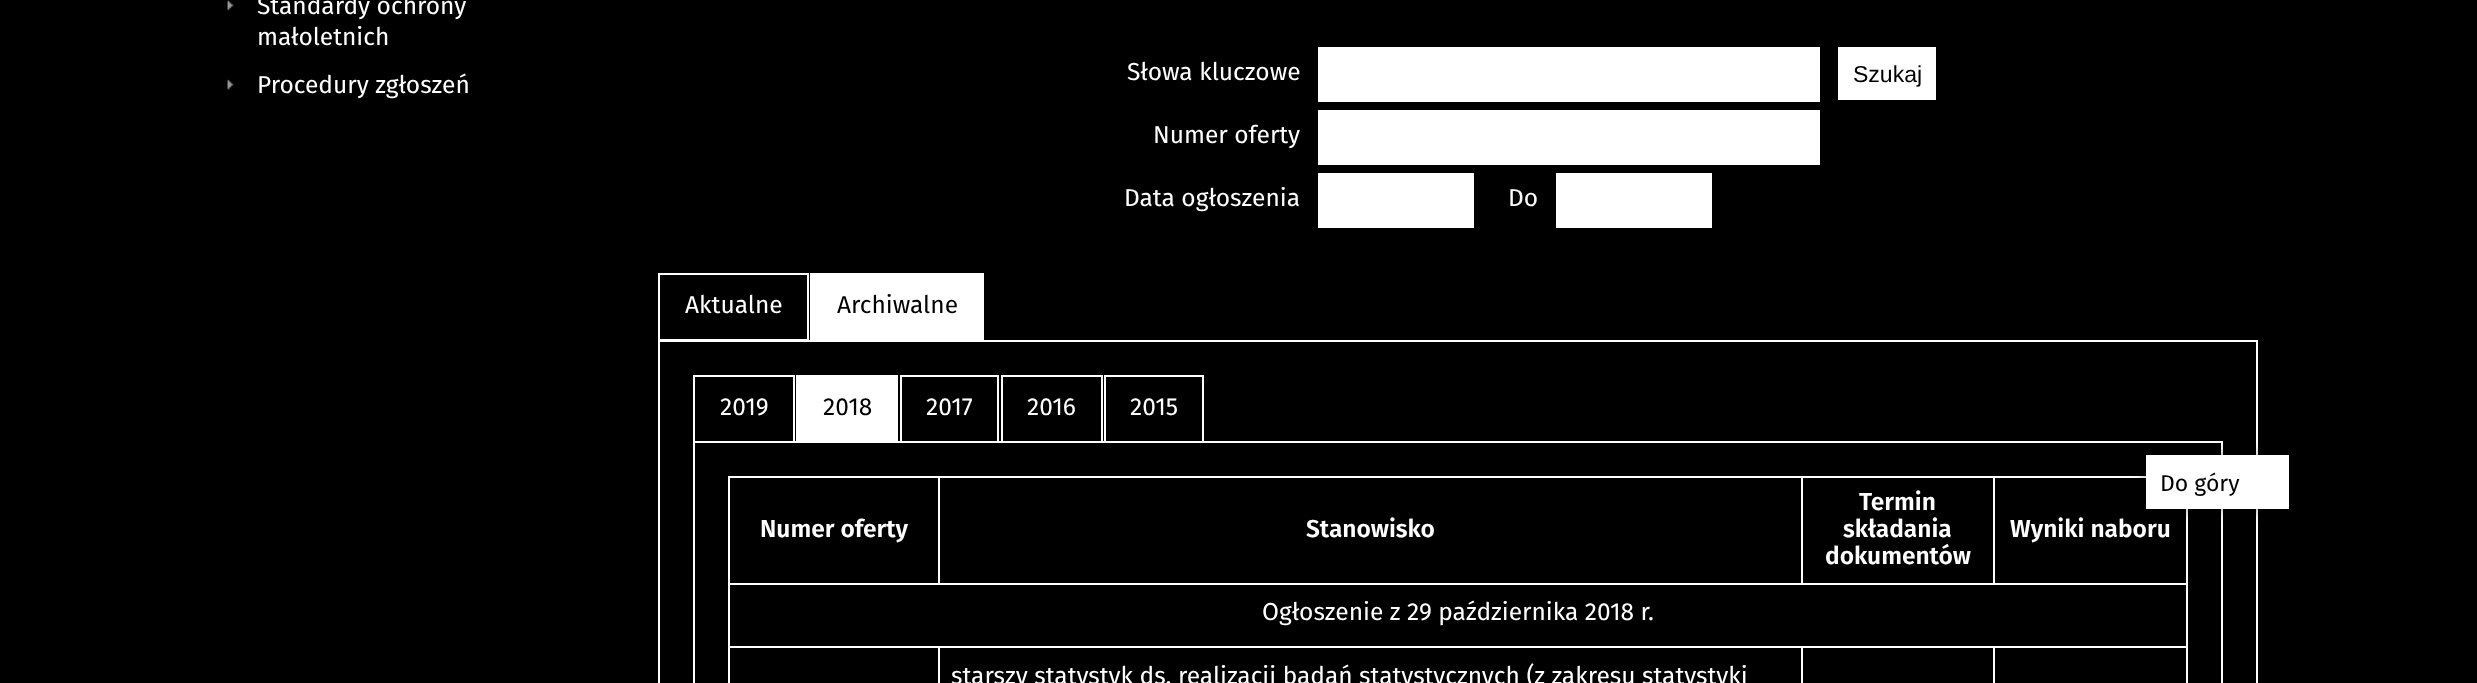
<svg xmlns="http://www.w3.org/2000/svg" width="2477" height="683">
<style>
.a{font:24.5px Fira Sans;fill:#fff}
.b{font:23px Liberation Sans;fill:#000}
.c{font:24.5px Fira Sans;fill:#000}
.d{font:600 24.5px Fira Sans;fill:#fff}
.e{font:23px Fira Sans;fill:#000}
</style>
<rect width="100%" height="100%" fill="#000"/>
<image href="1.png" x="227" y="0" width="7" height="11"/>
<image href="2.png" x="227" y="79" width="7" height="11"/>
<path fill="#fff" d="M1318 47h502v55H1318z"/>
<path fill="#fff" d="M1838 47h98v53H1838z"/>
<path fill="#fff" d="M1318 110h502v55H1318z"/>
<path fill="#fff" d="M1318 173h156v55H1318z"/>
<path fill="#fff" d="M1556 173h156v55H1556z"/>
<path fill="none" stroke="#fff" stroke-width="2" d="M659 341h1598v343H659z"/>
<path fill="none" stroke="#fff" stroke-width="2" d="M659 274h149v66H659z"/>
<path fill="#fff" d="M810 273h174v67H810z"/>
<path fill="none" stroke="#fff" stroke-width="2" d="M694 442h1528v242H694z"/>
<path fill="none" stroke="#fff" stroke-width="2" d="M694 376h100v66H694z"/>
<path fill="#fff" d="M796 375h102v66H796z"/>
<path fill="none" stroke="#fff" stroke-width="2" d="M901 376h97v66H901z"/>
<path fill="none" stroke="#fff" stroke-width="2" d="M1002 376h100v66H1002z"/>
<path fill="none" stroke="#fff" stroke-width="2" d="M1105 376h98v66H1105z"/>
<path fill="#fff" d="M1993 476h153v2H1993z"/>
<path fill="#fff" d="M728 583h1460v2H728z"/>
<path fill="#fff" d="M1993 476h2v109H1993z"/>
<path fill="#fff" d="M1801 476h194v2H1801z"/>
<path fill="#fff" d="M1801 476h2v109H1801z"/>
<path fill="#fff" d="M938 476h865v2H938z"/>
<path fill="#fff" d="M938 476h2v109H938z"/>
<path fill="#fff" d="M728 476h212v2H728z"/>
<path fill="#fff" d="M1993 646h195v2H1993z"/>
<path fill="#fff" d="M1993 646h2v37H1993z"/>
<path fill="#fff" d="M1801 646h194v2H1801z"/>
<path fill="#fff" d="M1801 646h2v37H1801z"/>
<path fill="#fff" d="M938 646h865v2H938z"/>
<path fill="#fff" d="M938 646h2v37H938z"/>
<path fill="#fff" d="M728 646h212v2H728z"/>
<path fill="#fff" d="M728 646h2v37H728z"/>
<path fill="#fff" d="M728 583h2v65H728z"/>
<path fill="#fff" d="M728 476h2v109H728z"/>
<path fill="#fff" d="M2186 646h2v37H2186z"/>
<path fill="#fff" d="M2186 509h2v139H2186z"/>
<path fill="#000000b3" filter="blur(9px)" d="M2151 460h133v44H2151z"/>
<path fill="#fff" d="M2146 455h143v54H2146z"/>
<text class="a" x="257" y="14">Standardy ochrony</text>
<text class="a" x="257" y="45">małoletnich</text>
<text class="a" x="257" y="93">Procedury zgłoszeń</text>
<text class="a" x="1127" y="80">Słowa kluczowe</text>
<text class="b" x="1853" y="82">Szukaj</text>
<text class="a" x="1153" y="143">Numer oferty</text>
<text class="a" x="1124" y="206">Data ogłoszenia</text>
<text class="a" x="1508" y="206">Do</text>
<text class="a" x="685" y="313">Aktualne</text>
<text class="c" x="837" y="313">Archiwalne</text>
<text class="a" x="720" y="415">2019</text>
<text class="c" x="823" y="415">2018</text>
<text class="a" x="926" y="415">2017</text>
<text class="a" x="1027" y="415">2016</text>
<text class="a" x="1130" y="415">2015</text>
<text class="d" x="760" y="537">Numer oferty</text>
<text class="d" x="1306" y="537">Stanowisko</text>
<text class="d" x="1859" y="510">Termin</text>
<text class="d" x="1843" y="537">składania</text>
<text class="d" x="1825" y="564">dokumentów</text>
<text class="d" x="2010" y="537">Wyniki naboru</text>
<text class="a" x="1262" y="620">Ogłoszenie z 29 października 2018 r.</text>
<text class="a" x="951" y="684">starszy statystyk ds. realizacji badań statystycznych (z zakresu statystyki</text>
<text class="e" x="2160" y="491">Do góry</text>
</svg>
